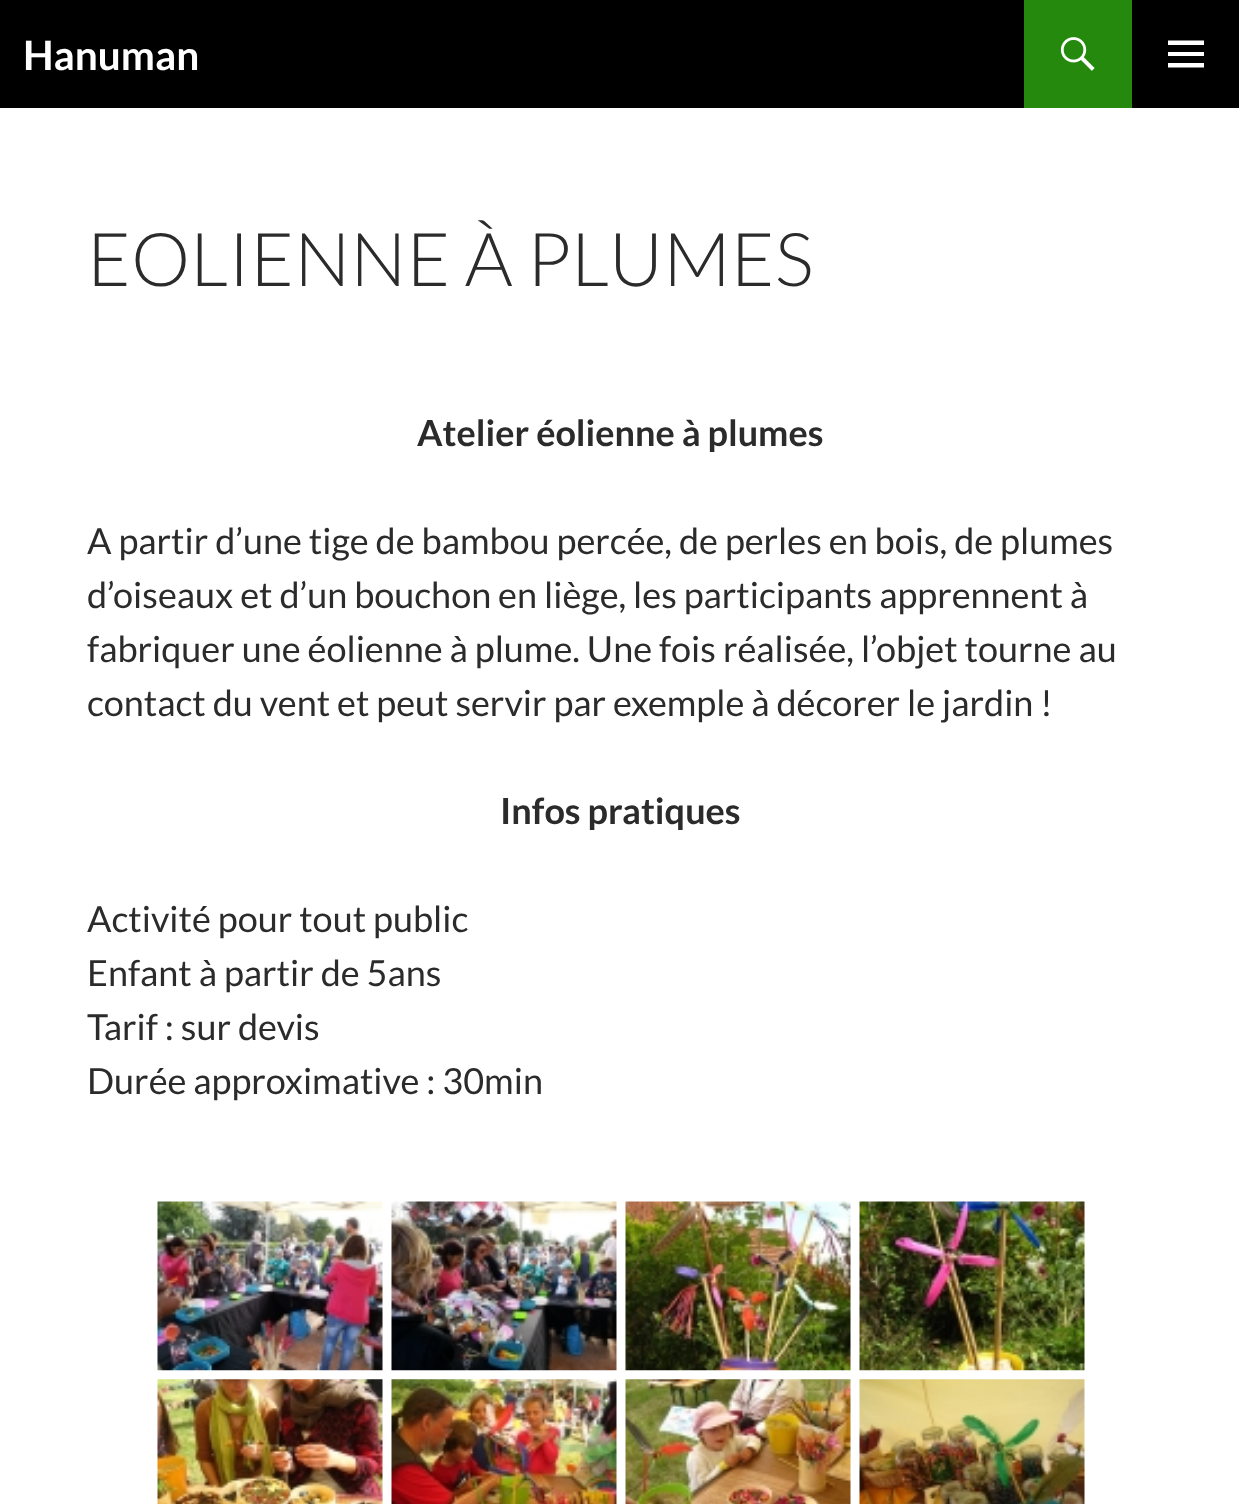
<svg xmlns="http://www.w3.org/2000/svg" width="1239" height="1504">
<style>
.a{font:bold 40.5px Lato;fill:#fff}
.b{font:300 74.25px Lato;fill:#2b2b2b}
.c{font:bold 36px Lato;fill:#2b2b2b}
.d{font:36px Lato;fill:#2b2b2b}
</style>
<rect width="100%" height="100%" fill="#fff"/>
<path fill="#000" d="M0 0h1239v108H0z"/>
<path fill="#24890d" d="M1024 0h108v108H1024z"/>
<image href="1.png" x="1060" y="37" width="35" height="34"/>
<path fill="#fff" d="M1168 67.5v-4.5h36v4.5zm0-11.5v-4h36v4zm0-11v-4.5h36v4.5z"/>
<image href="2.png" x="157" y="1201" width="226" height="170"/>
<image href="3.png" x="391" y="1201" width="226" height="170"/>
<image href="4.png" x="625" y="1201" width="226" height="170"/>
<image href="5.png" x="859" y="1201" width="226" height="170"/>
<image href="6.png" x="157" y="1379" width="226" height="125"/>
<image href="7.png" x="391" y="1379" width="226" height="125"/>
<image href="8.png" x="625" y="1379" width="226" height="125"/>
<image href="9.png" x="859" y="1379" width="226" height="125"/>
<text class="a" x="23" y="70">Hanuman</text>
<text class="b" x="87" y="286">EOLIENNE À PLUMES</text>
<text class="c" x="417" y="446">Atelier éolienne à plumes</text>
<text class="d" x="87" y="554">A partir d’une tige de bambou percée, de perles en bois, de plumes</text>
<text class="d" x="87" y="608">d’oiseaux et d’un bouchon en liège, les participants apprennent à</text>
<text class="d" x="87" y="662">fabriquer une éolienne à plume. Une fois réalisée, l’objet tourne au</text>
<text class="d" x="87" y="716">contact du vent et peut servir par exemple à décorer le jardin !</text>
<text class="c" x="500" y="824">Infos pratiques</text>
<text class="d" x="87" y="932">Activité pour tout public</text>
<text class="d" x="87" y="986">Enfant à partir de 5ans</text>
<text class="d" x="87" y="1040">Tarif : sur devis</text>
<text class="d" x="87" y="1094">Durée approximative : 30min</text>
</svg>
